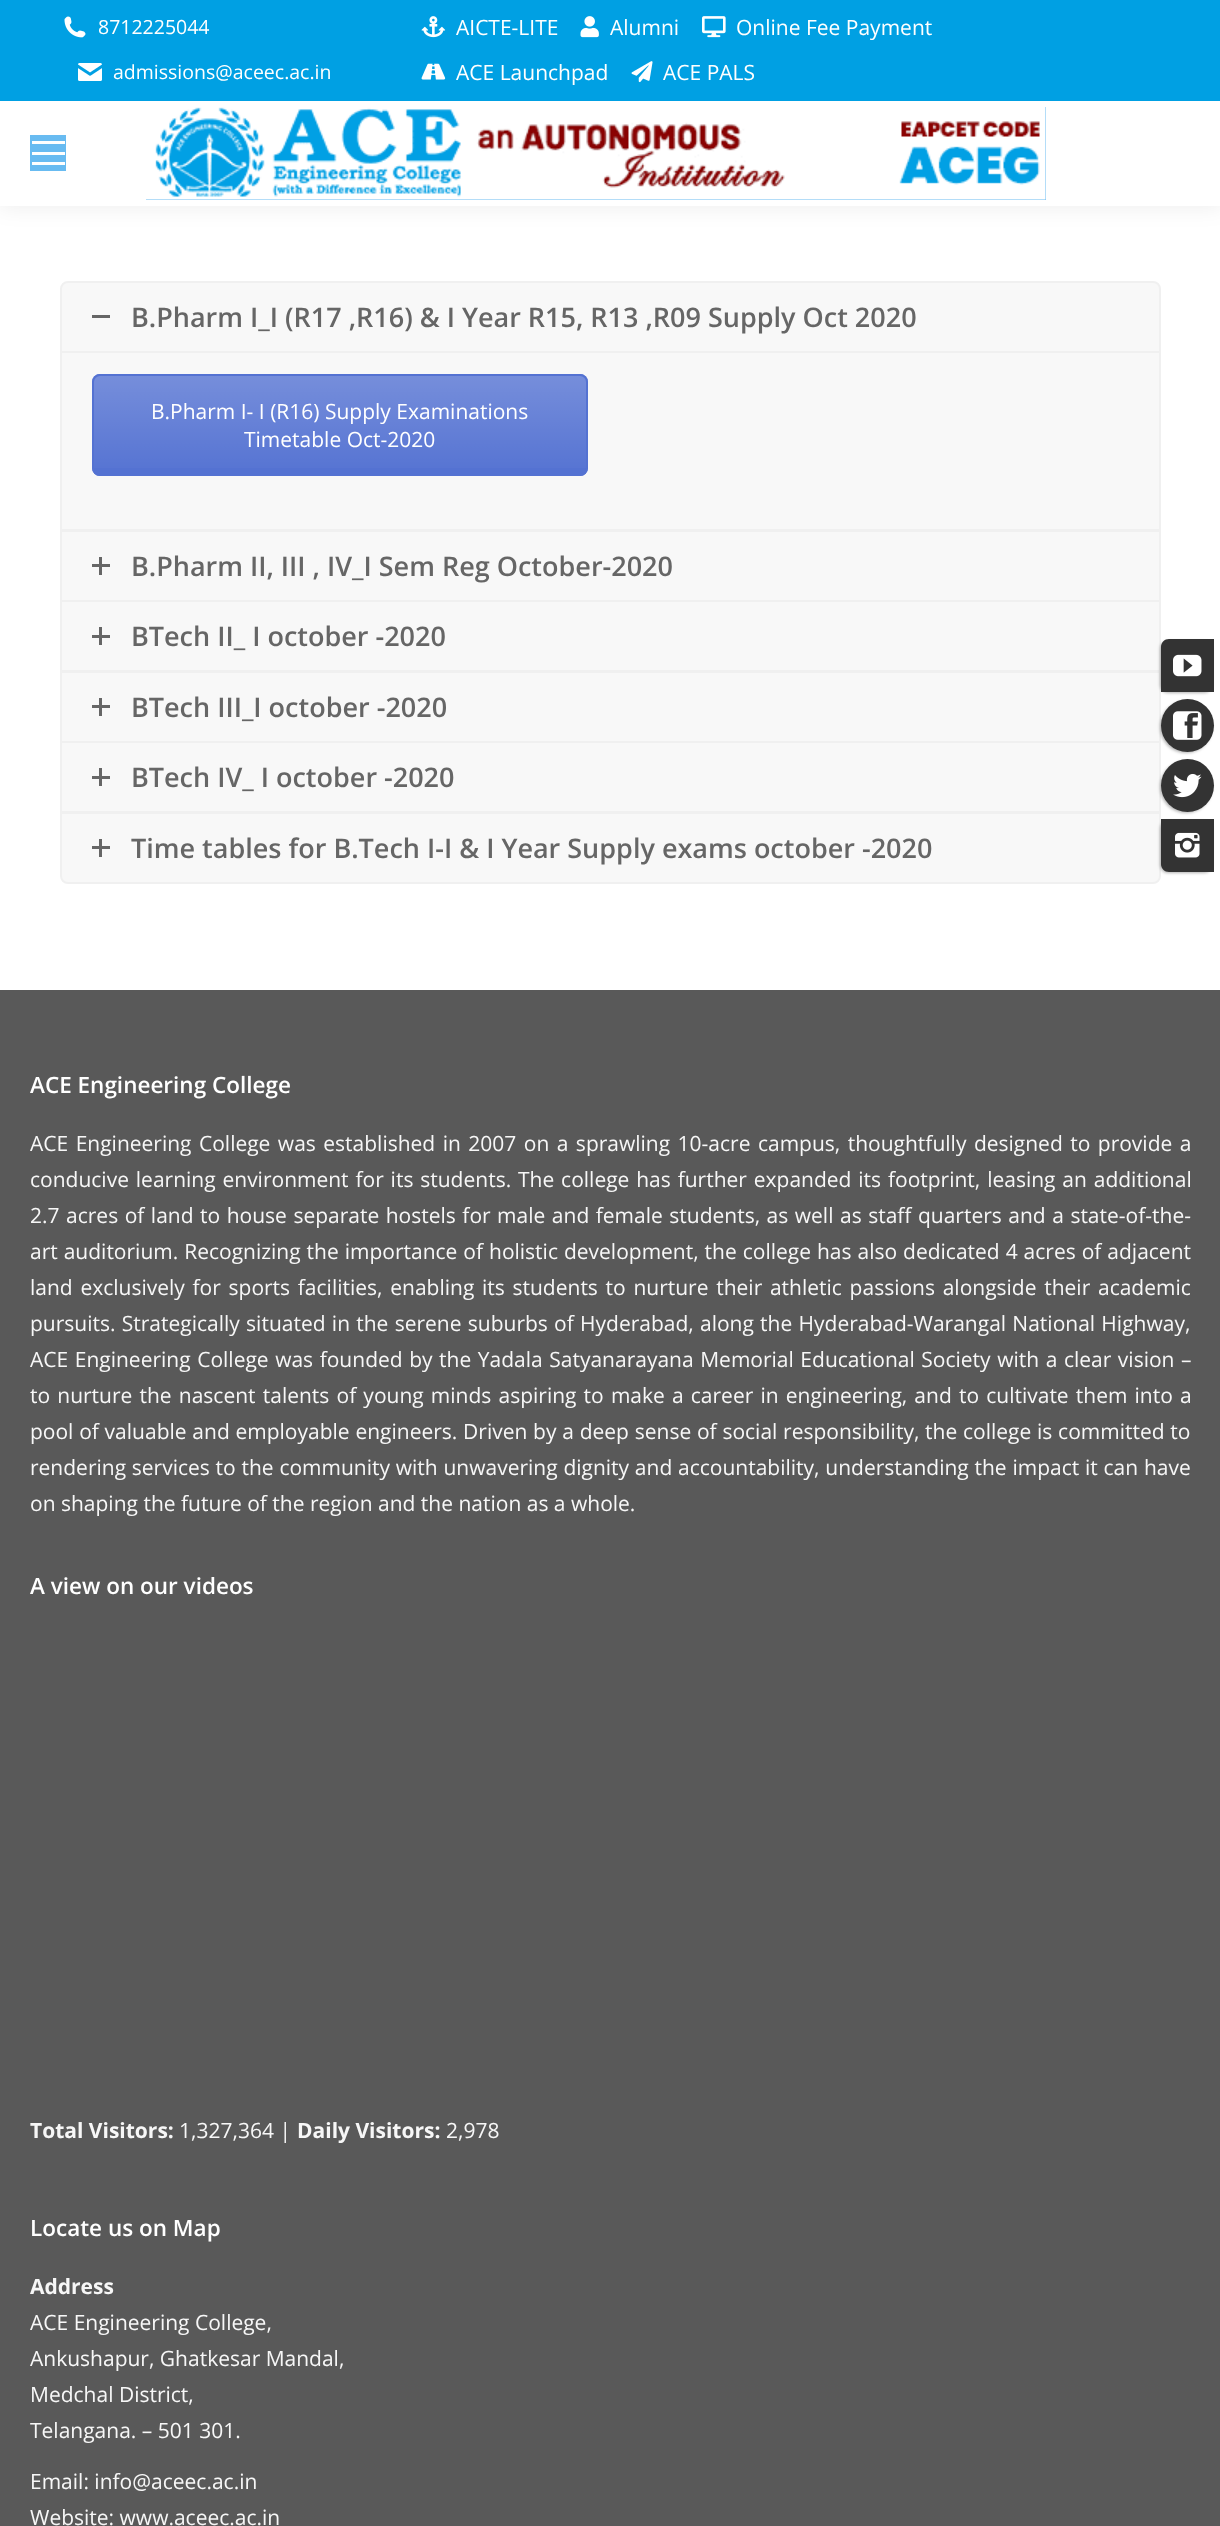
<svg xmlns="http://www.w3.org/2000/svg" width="1220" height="2526">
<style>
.a{font:19.5px Open Sans;fill:#fff}
.b{font:21px Open Sans;fill:#fff}
.c{font:600 27px Open Sans;fill:#666}
.d{font:600 22.5px Open Sans;fill:#fff}
.e{font:21px Open Sans;fill:#f7f7f7}
.f{font:bold 21px Open Sans;fill:#f7f7f7}
</style>
<defs>
<clipPath id="clip1"><rect x="92" y="374" width="496" height="102" rx="8"/></clipPath>
<linearGradient id="g1" gradientUnits="userSpaceOnUse" x1="340" y1="375" x2="340" y2="474"><stop offset="0" stop-color="#fff" stop-opacity="0.2"/><stop offset="1" stop-color="#fff" stop-opacity="0.01"/></linearGradient>
</defs>
<rect width="100%" height="100%" fill="#fff"/>
<path fill="#00000012" filter="blur(11px)" d="M-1 -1h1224v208H-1z"/>
<path fill="#fff" d="M0 101h1220v105H0z"/>
<path fill="#00a0e3" d="M0 0h1220v101H0z"/>
<image href="1.png" x="64" y="16" width="22" height="22"/>
<image href="2.png" x="78" y="63" width="24" height="18"/>
<image href="3.png" x="421" y="16" width="25" height="22"/>
<image href="4.png" x="580" y="16" width="19" height="22"/>
<image href="5.png" x="702" y="16" width="24" height="22"/>
<image href="6.png" x="421" y="63" width="25" height="17"/>
<image href="7.png" x="631" y="61" width="22" height="22"/>
<path fill="#68bbf1" d="M30 135h36v36H30z"/>
<path fill="#fff" d="M32 141h33v3H32z"/>
<path fill="#fff" d="M32 152h33v3H32z"/>
<path fill="#fff" d="M32 162h33v3H32z"/>
<path fill="#68bbf1" d="M146 107h900v93H146z"/>
<image href="8.png" x="146" y="107" width="900" height="93"/>
<path fill="#f8f8f8" stroke="#f0f0f0" stroke-width="2" d="M68 282h1085c4 0 7 3 7 7v63h-1099v-63c0-4 3-7 7-7z"/>
<path fill="#666" d="M92 315h18v3H92z"/>
<path fill="#f8f8f8" stroke="#f0f0f0" stroke-width="2" d="M61 531h1099v70H61z"/>
<path fill="#f8f8f8" stroke="#f0f0f0" stroke-width="2" d="M61 352h1099v178H61z"/>
<rect fill="#5472d2" x="92" y="374" width="496" height="102" rx="8"/>
<g clip-path="url(#clip1)">
<path fill="url(#g1)" d="M92 375h496v93H92z"/>
</g>
<rect fill="none" stroke="#5472d2" stroke-width="2" x="93" y="375" width="494" height="100" rx="7"/>
<path fill="#666" d="M92 564h18v3H92z"/>
<path fill="#666" d="M99 557h3v18H99z"/>
<path fill="#f8f8f8" stroke="#f0f0f0" stroke-width="2" d="M61 601h1099v70H61z"/>
<path fill="#666" d="M92 635h18v3H92z"/>
<path fill="#666" d="M99 627h3v18H99z"/>
<path fill="#f8f8f8" stroke="#f0f0f0" stroke-width="2" d="M61 672h1099v70H61z"/>
<path fill="#666" d="M92 705h18v3H92z"/>
<path fill="#666" d="M99 698h3v18H99z"/>
<path fill="#f8f8f8" stroke="#f0f0f0" stroke-width="2" d="M61 742h1099v70H61z"/>
<path fill="#666" d="M92 776h18v3H92z"/>
<path fill="#666" d="M99 768h3v18H99z"/>
<path fill="#f8f8f8" stroke="#f0f0f0" stroke-width="2" d="M61 813h1099v63c0 4-3 7-7 7h-1085c-4 0-7-3-7-7z"/>
<path fill="#666" d="M92 846h18v3H92z"/>
<path fill="#666" d="M99 839h3v18H99z"/>
<path fill="#595959" d="M0 990h1220v1536H0z"/>
<rect fill="#0000004d" filter="blur(1.5px)" x="1160" y="641" width="52" height="52" rx="8"/>
<path fill="#333" d="M1169 639h45v53h-53v-45c0-4.5 3.5-8 8-8z"/>
<image href="9.png" x="1173" y="654" width="29" height="23"/>
<rect fill="#0000004d" filter="blur(1.5px)" x="1160" y="701" width="52" height="52" rx="26"/>
<circle fill="#333" cx="1187.5" cy="725.5" r="26.5"/>
<image href="10.png" x="1172" y="711" width="30" height="29"/>
<rect fill="#0000004d" filter="blur(1.5px)" x="1160" y="761" width="52" height="52" rx="26"/>
<circle fill="#333" cx="1187.5" cy="785.5" r="26.5"/>
<image href="11.png" x="1173" y="773" width="29" height="25"/>
<rect fill="#0000004d" filter="blur(1.5px)" x="1160" y="821" width="52" height="52" rx="8"/>
<path fill="#333" d="M1161 819h53v53h-45c-4.5 0-8-3.5-8-8z"/>
<image href="12.png" x="1175" y="832" width="25" height="26"/>
<text class="a" x="98" y="34">8712225044</text>
<text class="a" x="113" y="79">admissions@aceec.ac.in</text>
<text class="b" x="456" y="35">AICTE-LITE</text>
<text class="b" x="610" y="35">Alumni</text>
<text class="b" x="736" y="35">Online Fee Payment</text>
<text class="b" x="456" y="80">ACE Launchpad</text>
<text class="b" x="663" y="80">ACE PALS</text>
<text class="c" x="131" y="327">B.Pharm I_I (R17 ,R16) &amp; I Year R15, R13 ,R09 Supply Oct 2020</text>
<text class="b" x="151" y="419">B.Pharm I- I (R16) Supply Examinations</text>
<text class="b" x="244" y="447">Timetable Oct-2020</text>
<text class="c" x="131" y="576">B.Pharm II, III , IV_I Sem Reg October-2020</text>
<text class="c" x="131" y="646">BTech II_ I october -2020</text>
<text class="c" x="131" y="717">BTech III_I october -2020</text>
<text class="c" x="131" y="787">BTech IV_ I october -2020</text>
<text class="c" x="131" y="858">Time tables for B.Tech I-I &amp; I Year Supply exams october -2020</text>
<text class="d" x="30" y="1093">ACE Engineering College</text>
<text class="e" x="30" y="1151" word-spacing="2">ACE Engineering College was established in 2007 on a sprawling 10-acre campus, thoughtfully designed to provide a</text>
<text class="e" x="30" y="1187" word-spacing="1.4">conducive learning environment for its students. The college has further expanded its footprint, leasing an additional</text>
<text class="e" x="30" y="1223" word-spacing="1.05">2.7 acres of land to house separate hostels for male and female students, as well as staff quarters and a state-of-the-</text>
<text class="e" x="30" y="1259" word-spacing="0.5">art auditorium. Recognizing the importance of holistic development, the college has also dedicated 4 acres of adjacent</text>
<text class="e" x="30" y="1295" word-spacing="2.25">land exclusively for sports facilities, enabling its students to nurture their athletic passions alongside their academic</text>
<text class="e" x="30" y="1331" word-spacing="0.8">pursuits. Strategically situated in the serene suburbs of Hyderabad, along the Hyderabad-Warangal National Highway,</text>
<text class="e" x="30" y="1367" word-spacing="1.1">ACE Engineering College was founded by the Yadala Satyanarayana Memorial Educational Society with a clear vision –</text>
<text class="e" x="30" y="1403" word-spacing="1.7">to nurture the nascent talents of young minds aspiring to make a career in engineering, and to cultivate them into a</text>
<text class="e" x="30" y="1439" word-spacing="0.3">pool of valuable and employable engineers. Driven by a deep sense of social responsibility, the college is committed to</text>
<text class="e" x="30" y="1475" word-spacing="0.3">rendering services to the community with unwavering dignity and accountability, understanding the impact it can have</text>
<text class="e" x="30" y="1511">on shaping the future of the region and the nation as a whole.</text>
<text class="d" x="30" y="1594">A view on our videos</text>
<text class="f" x="30" y="2138">Total Visitors:</text>
<text class="e" x="179" y="2138">1,327,364 |</text>
<text class="f" x="297" y="2138">Daily Visitors:</text>
<text class="e" x="446" y="2138">2,978</text>
<text class="d" x="30" y="2236">Locate us on Map</text>
<text class="f" x="30" y="2294">Address</text>
<text class="e" x="30" y="2330">ACE Engineering College,</text>
<text class="e" x="30" y="2366">Ankushapur, Ghatkesar Mandal,</text>
<text class="e" x="30" y="2402">Medchal District,</text>
<text class="e" x="30" y="2438">Telangana. – 501 301.</text>
<text class="e" x="30" y="2489">Email: info@aceec.ac.in</text>
<text class="e" x="30" y="2525">Website: www.aceec.ac.in</text>
</svg>
